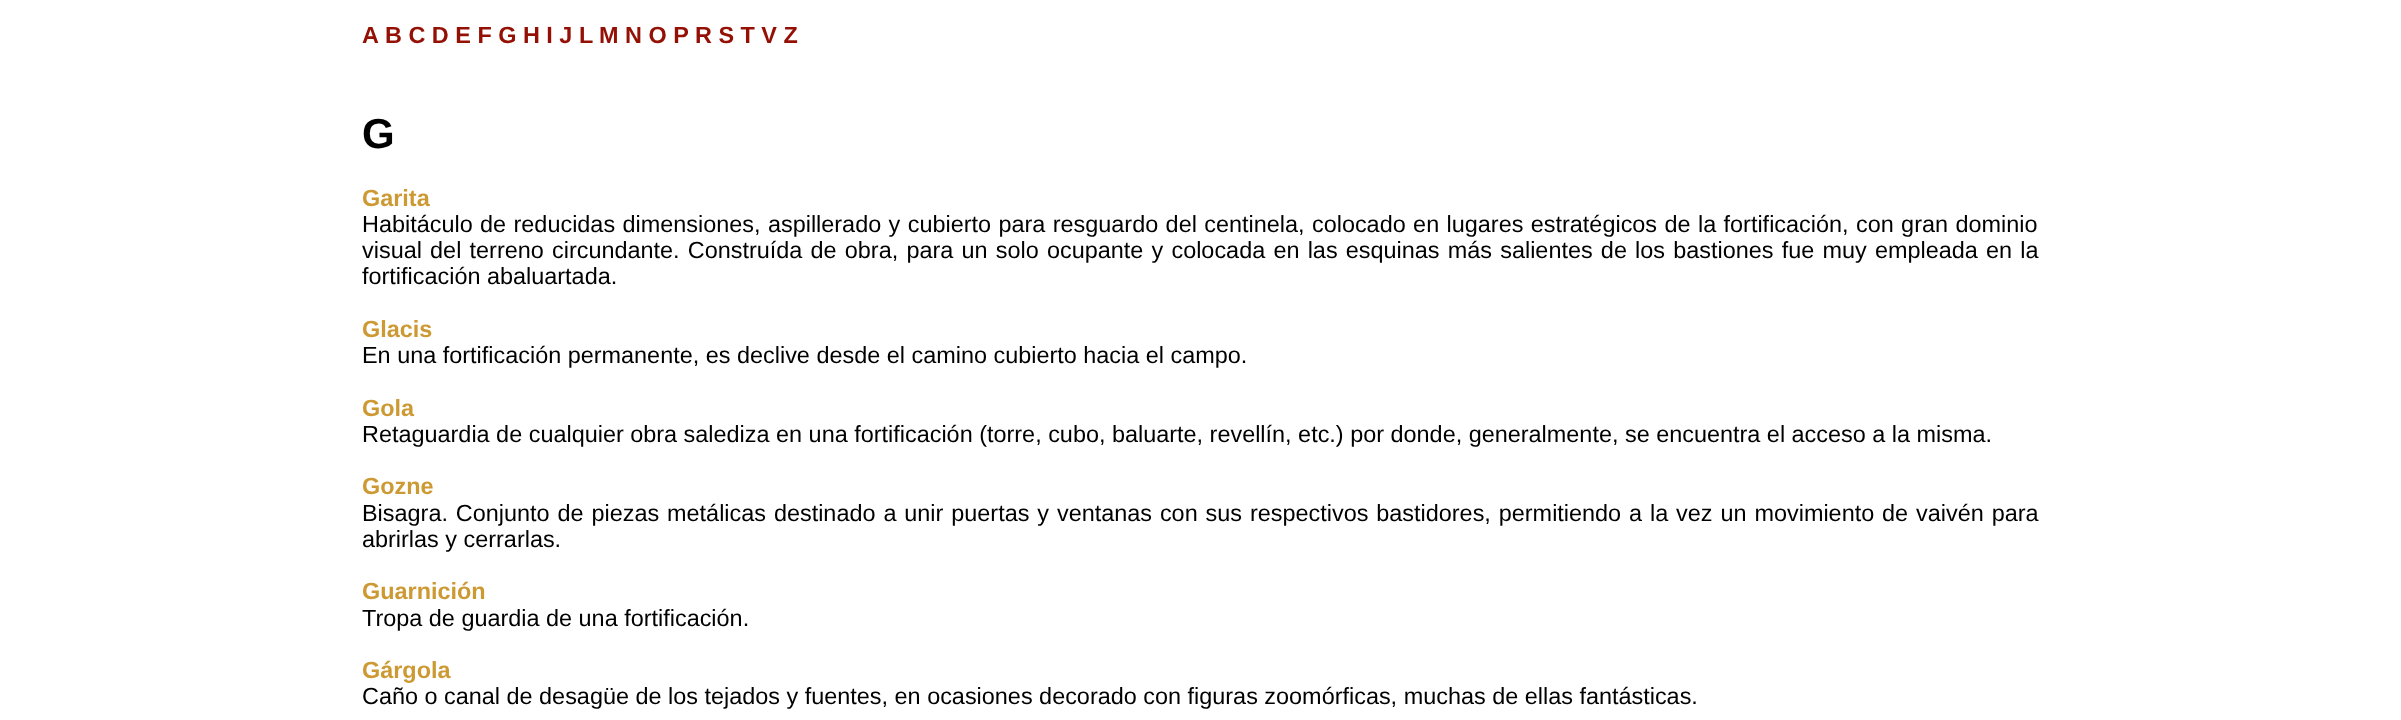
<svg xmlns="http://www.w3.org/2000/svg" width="2401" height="720">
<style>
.a{font:bold 23.43px Liberation Sans;fill:#940f04}
.b{font:bold 42px Liberation Sans;fill:#000}
.c{font:bold 23.43px Liberation Sans;fill:#c93}
.d{font:23.43px Liberation Sans;fill:#000}
</style>
<rect width="100%" height="100%" fill="#fff"/>
<text class="a" x="362" y="43">A</text>
<text class="a" x="385" y="43">B C D E F G H I J L</text>
<text class="a" x="599" y="43">M N O P</text>
<text class="a" x="695" y="43">R S T V Z</text>
<text class="b" x="362" y="148">G</text>
<text class="c" x="362" y="206">Garita</text>
<text class="d" x="362" y="232" word-spacing="0.9">Habitáculo de reducidas dimensiones, aspillerado y cubierto para resguardo del centinela, colocado en lugares estratégicos de la fortificación, con gran dominio</text>
<text class="d" x="362" y="258" word-spacing="1.7">visual del terreno circundante. Construída de obra, para un solo ocupante y colocada en las esquinas más salientes de los bastiones fue muy empleada en la</text>
<text class="d" x="362" y="284">fortificación abaluartada.</text>
<text class="c" x="362" y="337">Glacis</text>
<text class="d" x="362" y="363">En una fortificación permanente, es declive desde el camino cubierto hacia el campo.</text>
<text class="c" x="362" y="416">Gola</text>
<text class="d" x="362" y="442">Retaguardia de cualquier obra salediza en una fortificación (torre, cubo, baluarte, revellín, etc.) por donde, generalmente, se encuentra el acceso a la misma.</text>
<text class="c" x="362" y="494">Gozne</text>
<text class="d" x="362" y="521" word-spacing="1.4">Bisagra. Conjunto de piezas metálicas destinado a unir puertas y ventanas con sus respectivos bastidores, permitiendo a la vez un movimiento de vaivén para</text>
<text class="d" x="362" y="547">abrirlas y cerrarlas.</text>
<text class="c" x="362" y="599">Guarnición</text>
<text class="d" x="362" y="626">Tropa de guardia de una fortificación.</text>
<text class="c" x="362" y="678">Gárgola</text>
<text class="d" x="362" y="704">Caño o canal de desagüe de los tejados y fuentes, en ocasiones decorado con figuras zoomórficas, muchas de ellas fantásticas.</text>
</svg>
